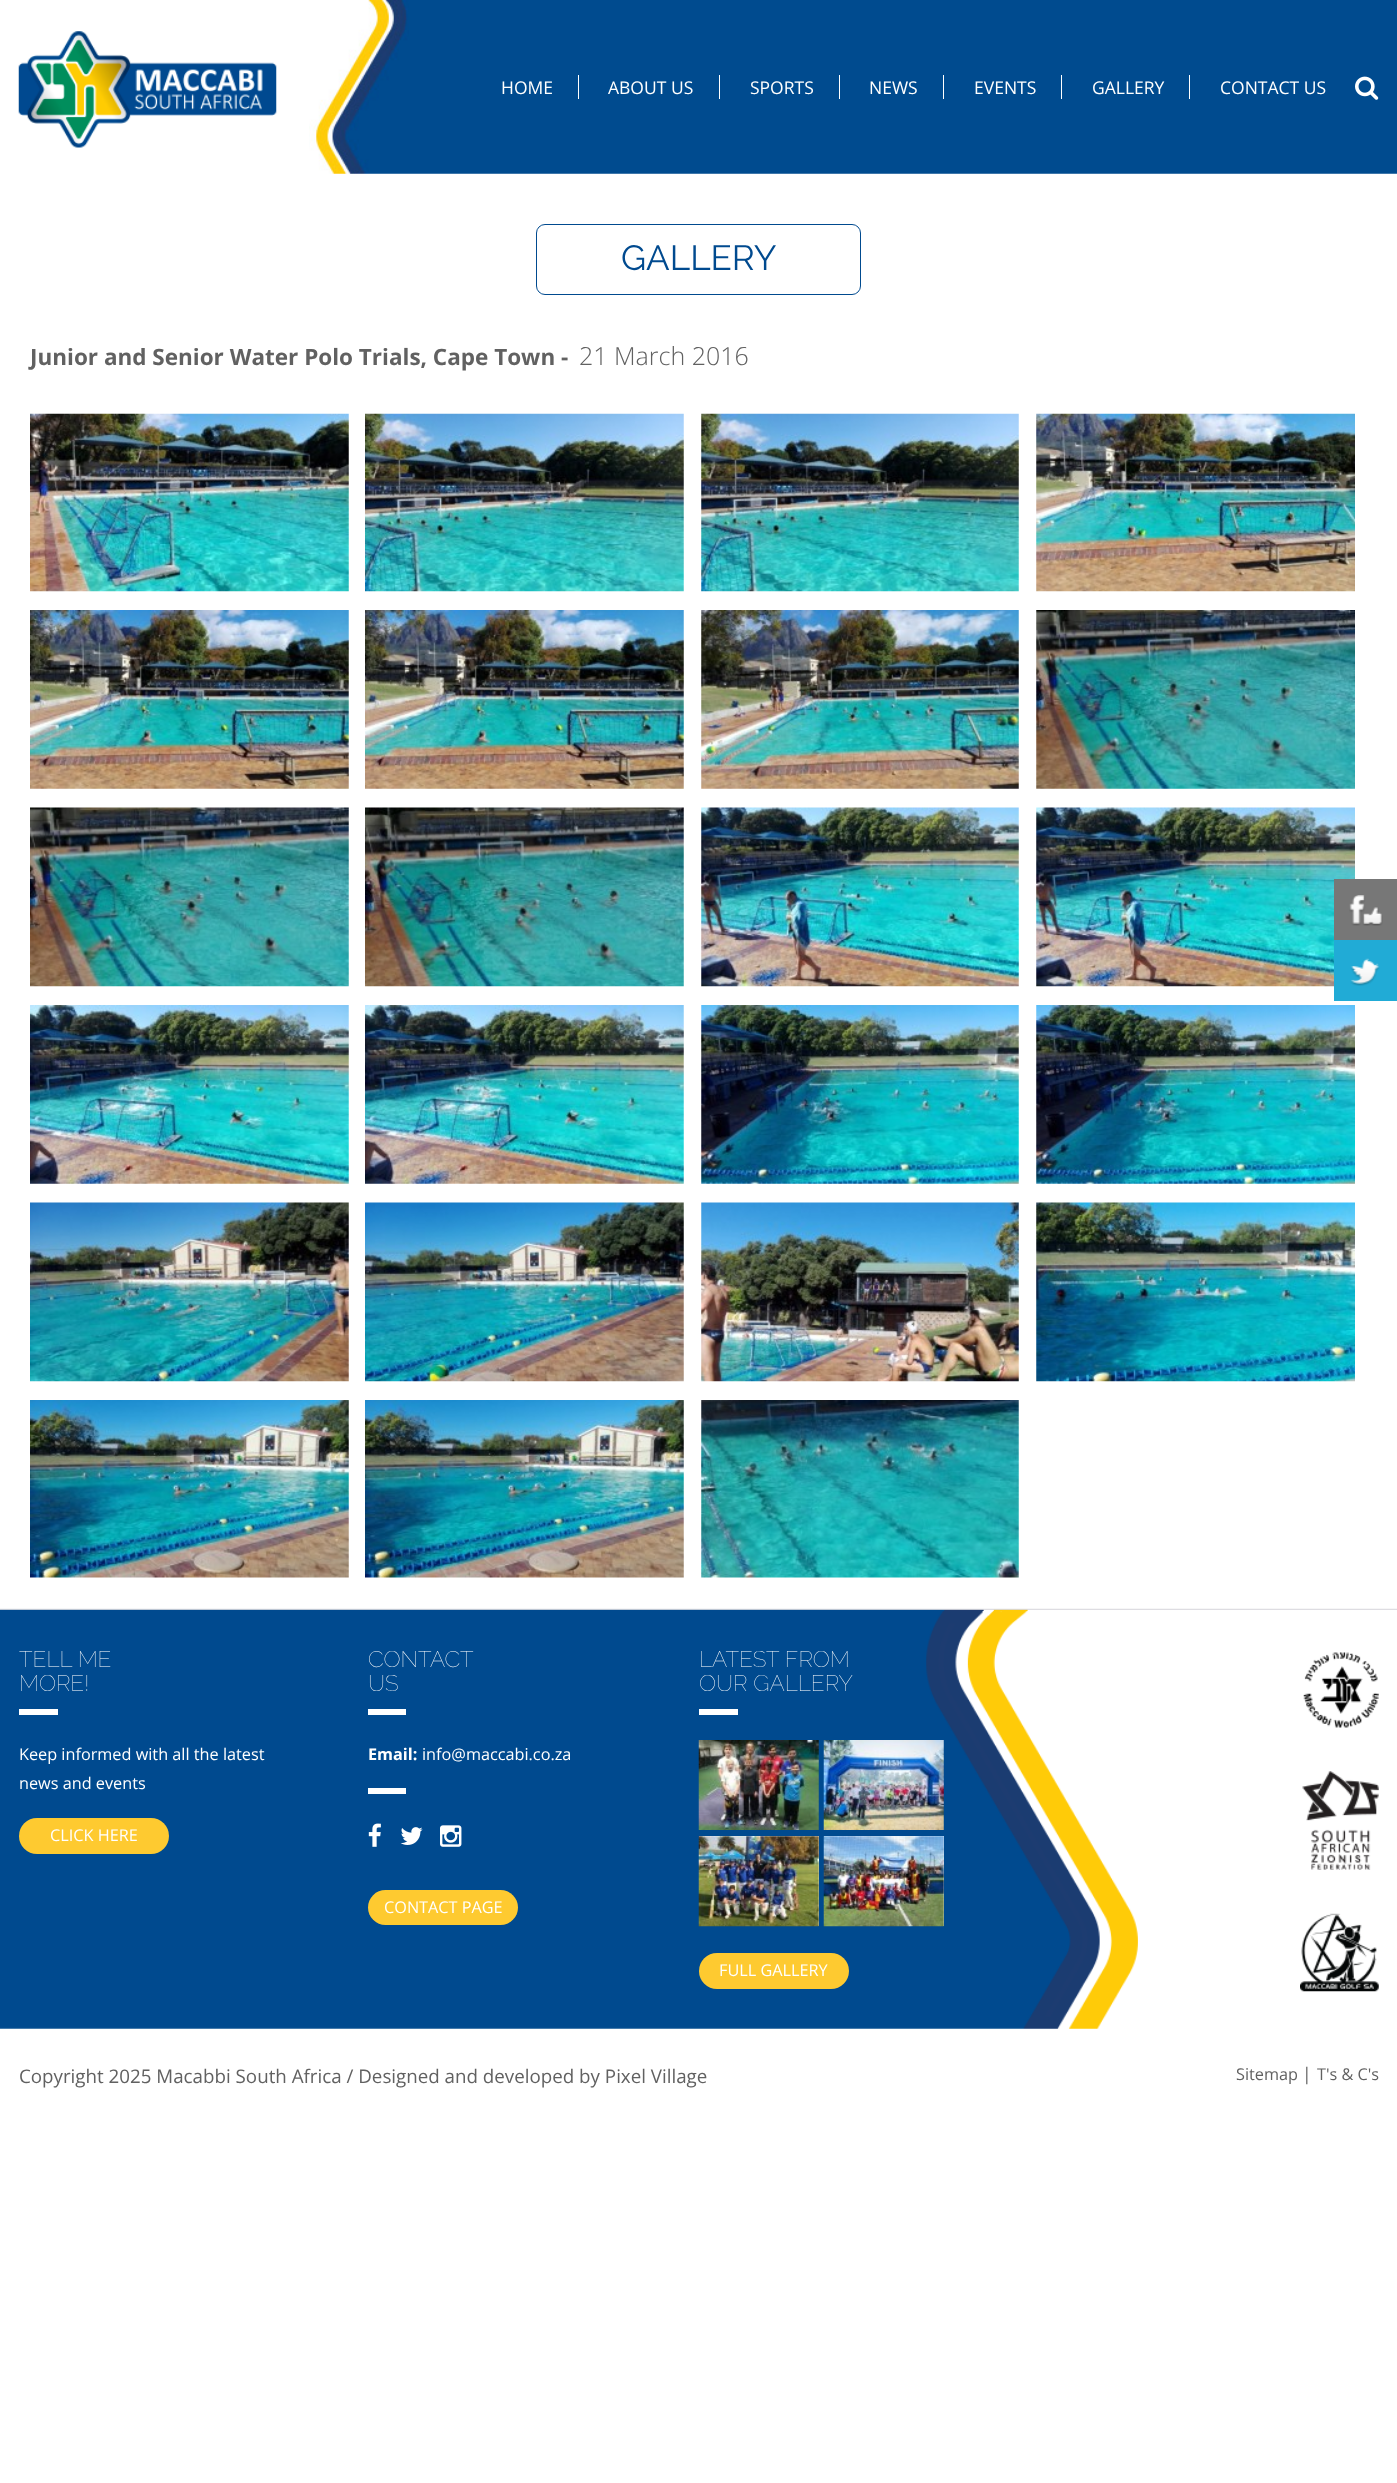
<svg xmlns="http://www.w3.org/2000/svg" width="1397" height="2483">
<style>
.a{font:17.5px Open Sans;fill:#fff}
.b{font:35px Raleway;fill:#004a8f}
.c{font:bold 22.5px Open Sans;fill:#616161}
.d{font:300 25px Open Sans;fill:#616161}
.e{font:100 22.5px Raleway;fill:#fff}
.f{font:16.25px Open Sans;fill:#fff}
.g{font:bold 16.25px Open Sans;fill:#fff}
.h{font:18.75px Open Sans;fill:#616161}
.i{font:16.25px Open Sans;fill:#616161}
.j{font:17.5px Open Sans;fill:#616161}
</style>
<rect width="100%" height="100%" fill="#fff"/>
<image href="1.png" x="309" y="0" width="1088" height="174"/>
<image href="2.png" x="18" y="31" width="259" height="117"/>
<path fill="#fff" d="M578 75h1v24H578z"/>
<path fill="#fff" d="M719 75h1v24H719z"/>
<path fill="#fff" d="M839 75h1v24H839z"/>
<path fill="#fff" d="M943 75h1v24H943z"/>
<path fill="#fff" d="M1061 75h1v24H1061z"/>
<path fill="#fff" d="M1189 75h1v24H1189z"/>
<image href="3.png" x="1355" y="76" width="24" height="24"/>
<rect fill="none" stroke="#004a8f" x="536.5" y="224.5" width="324" height="70" rx="8.5"/>
<image href="4.png" x="30" y="413" width="319" height="179"/>
<image href="5.png" x="365" y="413" width="319" height="179"/>
<image href="6.png" x="701" y="413" width="318" height="179"/>
<image href="7.png" x="1036" y="413" width="319" height="179"/>
<image href="8.png" x="30" y="610" width="319" height="179"/>
<image href="9.png" x="365" y="610" width="319" height="179"/>
<image href="10.png" x="701" y="610" width="318" height="179"/>
<image href="11.png" x="1036" y="610" width="319" height="179"/>
<image href="12.png" x="30" y="807" width="319" height="180"/>
<image href="13.png" x="365" y="807" width="319" height="180"/>
<image href="14.png" x="701" y="807" width="318" height="180"/>
<image href="15.png" x="1036" y="807" width="319" height="180"/>
<image href="16.png" x="30" y="1005" width="319" height="179"/>
<image href="17.png" x="365" y="1005" width="319" height="179"/>
<image href="18.png" x="701" y="1005" width="318" height="179"/>
<image href="19.png" x="1036" y="1005" width="319" height="179"/>
<image href="20.png" x="30" y="1202" width="319" height="180"/>
<image href="21.png" x="365" y="1202" width="319" height="180"/>
<image href="22.png" x="701" y="1202" width="318" height="180"/>
<image href="23.png" x="1036" y="1202" width="319" height="180"/>
<image href="24.png" x="30" y="1400" width="319" height="178"/>
<image href="25.png" x="365" y="1400" width="319" height="178"/>
<image href="26.png" x="701" y="1400" width="318" height="178"/>
<path fill="#777" d="M1334 879h63v61H1334z"/>
<image href="27.png" x="1349" y="895" width="34" height="31"/>
<path fill="#21abd6" d="M1334 940h63v61H1334z"/>
<image href="28.png" x="1350" y="958" width="30" height="28"/>
<image href="29.png" x="0" y="1608" width="1397" height="421"/>
<path fill="#fff" d="M19 1709h39v6H19z"/>
<rect fill="#feca30" x="19" y="1818" width="150" height="36" rx="18"/>
<path fill="#fff" d="M368 1709h38v6H368z"/>
<path fill="#fff" d="M368 1788h38v6H368z"/>
<image href="30.png" x="368" y="1823" width="13" height="24"/>
<image href="31.png" x="400" y="1827" width="23" height="18"/>
<image href="32.png" x="440" y="1825" width="22" height="22"/>
<rect fill="#feca30" x="368" y="1890" width="150" height="35" rx="17.5"/>
<path fill="#fff" d="M699 1709h39v6H699z"/>
<image href="33.png" x="698" y="1740" width="121" height="90"/>
<image href="34.png" x="823" y="1740" width="121" height="90"/>
<path fill="#fff" d="M699 1836h120v90H699z"/>
<image href="35.png" x="698" y="1836" width="121" height="91"/>
<path fill="#fff" d="M824 1836h120v90H824z"/>
<image href="36.png" x="823" y="1836" width="121" height="91"/>
<rect fill="#feca30" x="699" y="1953" width="150" height="36" rx="18"/>
<image href="37.png" x="1303" y="1652" width="76" height="76"/>
<image href="38.png" x="1302" y="1771" width="77" height="99"/>
<image href="39.png" x="1300" y="1913" width="79" height="79"/>
<text class="a" x="501" y="94">HOME</text>
<text class="a" x="608" y="94">ABOUT US</text>
<text class="a" x="750" y="94">SPORTS</text>
<text class="a" x="869" y="94">NEWS</text>
<text class="a" x="974" y="94">EVENTS</text>
<text class="a" x="1092" y="94">GALLERY</text>
<text class="a" x="1220" y="94">CONTACT US</text>
<text class="b" x="621" y="270">GALLERY</text>
<text class="c" x="30" y="365">Junior and Senior Water Polo Trials, Cape Town -</text>
<text class="d" x="579" y="365">21 March 2016</text>
<text class="e" x="19" y="1667">TELL ME</text>
<text class="e" x="19" y="1691">MORE!</text>
<text class="f" x="19" y="1760">Keep informed with all the latest</text>
<text class="f" x="19" y="1789">news and events</text>
<text class="f" x="50" y="1841">CLICK HERE</text>
<text class="e" x="368" y="1667">CONTACT</text>
<text class="e" x="368" y="1691">US</text>
<text class="g" x="368" y="1760">Email:</text>
<text class="f" x="422" y="1760">info@maccabi.co.za</text>
<text class="f" x="384" y="1913">CONTACT PAGE</text>
<text class="e" x="699" y="1667">LATEST FROM</text>
<text class="e" x="699" y="1691">OUR GALLERY</text>
<text class="f" x="719" y="1976">FULL GALLERY</text>
<text class="h" x="19" y="2083">Copyright 2025 Macabbi South Africa / Designed and developed by Pixel Village</text>
<text class="i" x="1236" y="2080">Sitemap</text>
<text class="j" x="1302" y="2080">|</text>
<text class="i" x="1317" y="2080">T's &amp; C's</text>
</svg>
